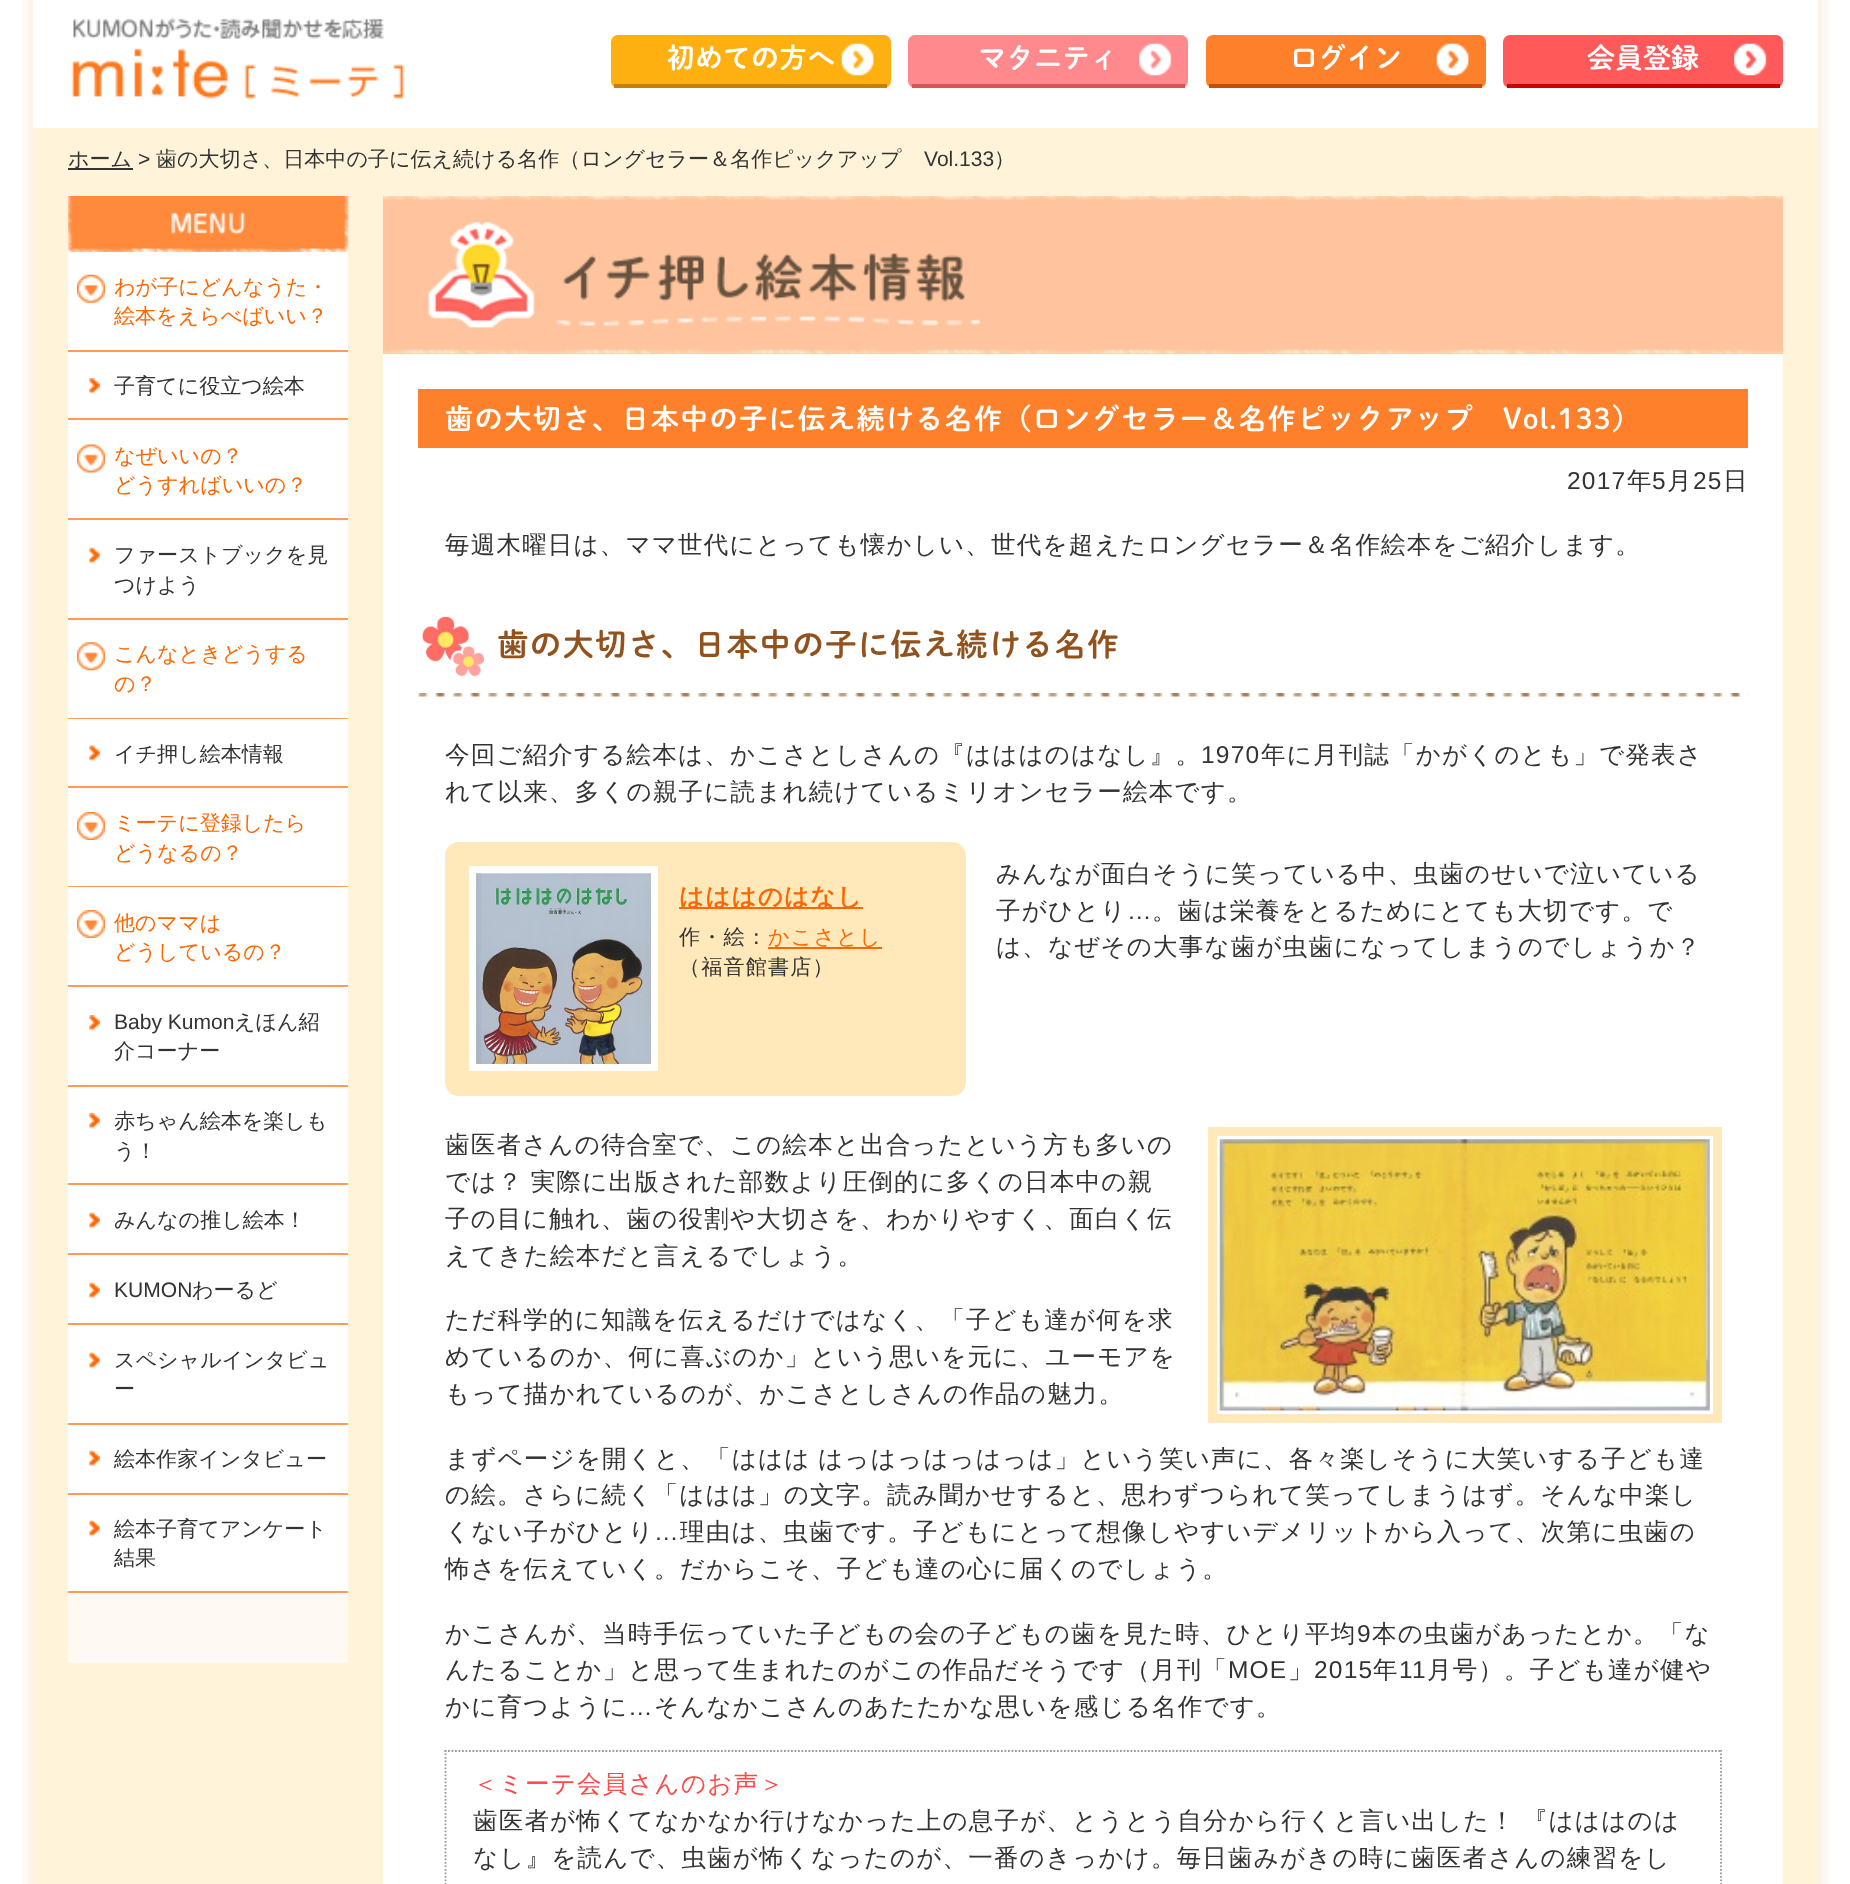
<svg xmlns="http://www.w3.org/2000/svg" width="1850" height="1884">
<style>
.a{font:600 28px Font;fill:#fff}
.b{font:500 21.05px WenQuanYi Zen Hei;fill:#333}
.c{font:21.05px Liberation Sans;fill:#333}
.d{font:500 21.05px WenQuanYi Zen Hei;fill:#f60}
.e{font:600 28.2px Font;letter-spacing:1.2px;fill:#fff}
.f{font:24.5px Liberation Sans;letter-spacing:1.2px;fill:#333}
.g{font:500 24.5px WenQuanYi Zen Hei;letter-spacing:1.2px;fill:#333}
.h{font:600 31.6px Font;letter-spacing:1.2px;fill:#92521d}
.i{font:bold 24.5px WenQuanYi Zen Hei;letter-spacing:1.2px;fill:#f60}
.j{font:500 21.05px WenQuanYi Zen Hei;letter-spacing:1.2px;fill:#333}
.k{font:500 21.05px WenQuanYi Zen Hei;letter-spacing:1.2px;fill:#f60}
.l{font:500 24.5px WenQuanYi Zen Hei;letter-spacing:1.2px;fill:#ff4848}
</style>
<rect width="100%" height="100%" fill="#fff"/>
<image href="1.png" x="22" y="0" width="1809" height="1884"/>
<path fill="#fff" d="M33 0h1785v128H33z"/>
<image href="2.png" x="71" y="17" width="334" height="82"/>
<rect fill="#ffb011" x="611" y="35" width="280" height="53" rx="7"/>
<image href="3.png" x="841" y="43" width="33" height="33"/>
<path fill="#c4810a" d="M614 84h273v4H614z"/>
<rect fill="#ff898d" x="908" y="35" width="280" height="53" rx="7"/>
<image href="4.png" x="1139" y="43" width="33" height="33"/>
<path fill="#d85555" d="M912 84h273v4H912z"/>
<rect fill="#ff802b" x="1206" y="35" width="280" height="53" rx="7"/>
<image href="5.png" x="1436" y="43" width="33" height="33"/>
<path fill="#c64c09" d="M1209 84h273v4H1209z"/>
<rect fill="#ff5959" x="1503" y="35" width="280" height="53" rx="7"/>
<image href="6.png" x="1734" y="43" width="33" height="33"/>
<path fill="#c00" d="M1507 84h273v4H1507z"/>
<path fill="#333" d="M68 168h65v2H68z"/>
<path fill="#fff9f4" d="M68 196h280v1467H68z"/>
<image href="7.png" x="68" y="196" width="281" height="56"/>
<path fill="#ff9b57" d="M68 350h280v2H68z"/>
<path fill="#fff" d="M68 252h280v98H68z"/>
<image href="8.png" x="77" y="274" width="28" height="29"/>
<path fill="#ff9b57" d="M68 418h280v2H68z"/>
<path fill="#fff" d="M68 352h280v66H68z"/>
<image href="9.png" x="89" y="378" width="11" height="16"/>
<path fill="#ff9b57" d="M68 518h280v2H68z"/>
<path fill="#fff" d="M68 420h280v98H68z"/>
<image href="10.png" x="77" y="444" width="28" height="29"/>
<path fill="#ff9b57" d="M68 618h280v2H68z"/>
<path fill="#fff" d="M68 520h280v98H68z"/>
<image href="11.png" x="89" y="547" width="11" height="17"/>
<path fill="#ff9b57" d="M68 718h280v1H68z"/>
<path fill="#fff" d="M68 620h280v98H68z"/>
<image href="12.png" x="77" y="642" width="28" height="29"/>
<path fill="#ff9b57" d="M68 786h280v2H68z"/>
<path fill="#fff" d="M68 719h280v67H68z"/>
<image href="13.png" x="89" y="745" width="11" height="17"/>
<path fill="#ff9b57" d="M68 886h280v1H68z"/>
<path fill="#fff" d="M68 788h280v98H68z"/>
<image href="14.png" x="77" y="812" width="28" height="28"/>
<path fill="#ff9b57" d="M68 985h280v2H68z"/>
<path fill="#fff" d="M68 887h280v98H68z"/>
<image href="14.png" x="77" y="910" width="28" height="28"/>
<path fill="#ff9b57" d="M68 1085h280v2H68z"/>
<path fill="#fff" d="M68 987h280v98H68z"/>
<image href="9.png" x="89" y="1015" width="11" height="16"/>
<path fill="#ff9b57" d="M68 1183h280v2H68z"/>
<path fill="#fff" d="M68 1087h280v96H68z"/>
<image href="9.png" x="89" y="1113" width="11" height="16"/>
<path fill="#ff9b57" d="M68 1253h280v2H68z"/>
<path fill="#fff" d="M68 1185h280v68H68z"/>
<image href="11.png" x="89" y="1212" width="11" height="17"/>
<path fill="#ff9b57" d="M68 1323h280v2H68z"/>
<path fill="#fff" d="M68 1255h280v68H68z"/>
<image href="11.png" x="89" y="1282" width="11" height="17"/>
<path fill="#ff9b57" d="M68 1423h280v2H68z"/>
<path fill="#fff" d="M68 1325h280v98H68z"/>
<image href="11.png" x="89" y="1352" width="11" height="17"/>
<path fill="#ff9b57" d="M68 1493h280v2H68z"/>
<path fill="#fff" d="M68 1425h280v68H68z"/>
<image href="11.png" x="89" y="1450" width="11" height="17"/>
<path fill="#ff9b57" d="M68 1591h280v2H68z"/>
<path fill="#fff" d="M68 1495h280v96H68z"/>
<image href="11.png" x="89" y="1520" width="11" height="17"/>
<path fill="#ffc49d" d="M383 196h1400v158H383z"/>
<image href="15.png" x="428" y="221" width="553" height="107"/>
<image href="16.png" x="383" y="196" width="1401" height="5"/>
<image href="17.png" x="383" y="348" width="1401" height="6"/>
<path fill="#fff" d="M383 354h1400v1530H383z"/>
<path fill="#ff802b" d="M418 389h1330v59H418z"/>
<image href="18.png" x="418" y="693" width="1331" height="4"/>
<image href="19.png" x="422" y="616" width="62" height="61"/>
<rect fill="#ffe8b9" x="445" y="842" width="521" height="254" rx="14"/>
<path fill="#fff" d="M469 866h189v205H469z"/>
<image href="20.png" x="476" y="873" width="175" height="191"/>
<path fill="#f60" d="M679 907h184v2H679z"/>
<path fill="#f60" d="M768 947h114v2H768z"/>
<path fill="none" stroke="#ffe8b9" stroke-width="9" d="M1212.5 1131.5h505v287H1212.5z"/>
<image href="21.png" x="1219" y="1139" width="491" height="272"/>
<path fill="none" stroke="#999" stroke-width="1.8" stroke-dasharray="1.75 1.75" d="M444.5 1751h1277.5"/>
<path fill="none" stroke="#999" stroke-width="1.8" stroke-dasharray="1.75 1.75" d="M1721 1750v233"/>
<path fill="none" stroke="#999" stroke-width="1.8" stroke-dasharray="1.75 1.75" d="M445.5 1750v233"/>
<text class="a" x="667" y="68">初めての方へ</text>
<text class="a" x="978" y="68">マタニティ</text>
<text class="a" x="1290" y="68">ログイン</text>
<text class="a" x="1587" y="68">会員登録</text>
<text class="b" x="68" y="166">ホーム</text>
<text class="c" x="138" y="166">&gt;</text>
<text class="b" x="156" y="166">歯の大切さ、日本中の子に伝え続ける名作（ロングセラー＆名作ピックアップ</text>
<text class="c" x="924" y="166">Vol.133</text>
<text class="b" x="994" y="166">）</text>
<text class="d" x="114" y="294">わが子にどんなうた・</text>
<text class="d" x="114" y="323">絵本をえらべばいい？</text>
<text class="b" x="114" y="393">子育てに役立つ絵本</text>
<text class="d" x="114" y="463">なぜいいの？</text>
<text class="d" x="114" y="492">どうすればいいの？</text>
<text class="b" x="114" y="562">ファーストブックを見</text>
<text class="b" x="114" y="592">つけよう</text>
<text class="d" x="114" y="661">こんなときどうする</text>
<text class="d" x="114" y="691">の？</text>
<text class="b" x="114" y="761">イチ押し絵本情報</text>
<text class="d" x="114" y="830">ミーテに登録したら</text>
<text class="d" x="114" y="860">どうなるの？</text>
<text class="d" x="114" y="930">他のママは</text>
<text class="d" x="114" y="959">どうしているの？</text>
<text class="c" x="114" y="1029">Baby Kumon</text>
<text class="b" x="234" y="1029">えほん紹</text>
<text class="b" x="114" y="1058">介コーナー</text>
<text class="b" x="114" y="1128">赤ちゃん絵本を楽しも</text>
<text class="b" x="114" y="1158">う！</text>
<text class="b" x="114" y="1227">みんなの推し絵本！</text>
<text class="c" x="114" y="1297">KUMON</text>
<text class="b" x="192" y="1297">わーるど</text>
<text class="b" x="114" y="1367">スペシャルインタビュ</text>
<text class="b" x="114" y="1396">ー</text>
<text class="b" x="114" y="1466">絵本作家インタビュー</text>
<text class="b" x="114" y="1536">絵本子育てアンケート</text>
<text class="b" x="114" y="1565">結果</text>
<text class="e" x="445" y="429">歯の大切さ、日本中の子に伝え続ける名作（ロングセラー＆名作ピックアップ　Vol.133）</text>
<text class="f" x="1567" y="489">2017</text>
<text class="g" x="1627" y="489">年</text>
<text class="f" x="1652" y="489">5</text>
<text class="g" x="1667" y="489">月</text>
<text class="f" x="1693" y="489">25</text>
<text class="g" x="1723" y="489">日</text>
<text class="g" x="445" y="553">毎週木曜日は、ママ世代にとっても懐かしい、世代を超えたロングセラー＆名作絵本をご紹介します。</text>
<text class="h" x="497" y="656">歯の大切さ、日本中の子に伝え続ける名作</text>
<text class="g" x="445" y="763">今回ご紹介する絵本は、かこさとしさんの『はははのはなし』。</text>
<text class="f" x="1201" y="763">1970</text>
<text class="g" x="1261" y="763">年に月刊誌「かがくのとも」で発表さ</text>
<text class="g" x="445" y="800">れて以来、多くの親子に読まれ続けているミリオンセラー絵本です。</text>
<text class="i" x="679" y="905">はははのはなし</text>
<text class="j" x="679" y="944">作・絵：</text>
<text class="k" x="768" y="944">かこさとし</text>
<text class="j" x="679" y="974">（福音館書店）</text>
<text class="g" x="996" y="882">みんなが面白そうに笑っている中、虫歯のせいで泣いている</text>
<text class="g" x="996" y="919">子がひとり</text>
<text class="f" x="1127" y="919">…</text>
<text class="g" x="1152" y="919">。歯は栄養をとるためにとても大切です。で</text>
<text class="g" x="996" y="955">は、なぜその大事な歯が虫歯になってしまうのでしょうか？</text>
<text class="g" x="445" y="1153">歯医者さんの待合室で、この絵本と出合ったという方も多いの</text>
<text class="g" x="445" y="1190" word-spacing="-1">では？ 実際に出版された部数より圧倒的に多くの日本中の親</text>
<text class="g" x="445" y="1227">子の目に触れ、歯の役割や大切さを、わかりやすく、面白く伝</text>
<text class="g" x="445" y="1264">えてきた絵本だと言えるでしょう。</text>
<text class="g" x="445" y="1328">ただ科学的に知識を伝えるだけではなく、「子ども達が何を求</text>
<text class="g" x="445" y="1365">めているのか、何に喜ぶのか」という思いを元に、ユーモアを</text>
<text class="g" x="445" y="1402">もって描かれているのが、かこさとしさんの作品の魅力。</text>
<text class="g" x="445" y="1467" word-spacing="-1">まずページを開くと、「ははは はっはっはっはっは」という笑い声に、各々楽しそうに大笑いする子ども達</text>
<text class="g" x="445" y="1503">の絵。さらに続く「ははは」の文字。読み聞かせすると、思わずつられて笑ってしまうはず。そんな中楽し</text>
<text class="g" x="445" y="1540">くない子がひとり</text>
<text class="f" x="654" y="1540">…</text>
<text class="g" x="680" y="1540">理由は、虫歯です。子どもにとって想像しやすいデメリットから入って、次第に虫歯の</text>
<text class="g" x="445" y="1577">怖さを伝えていく。だからこそ、子ども達の心に届くのでしょう。</text>
<text class="g" x="445" y="1642">かこさんが、当時手伝っていた子どもの会の子どもの歯を見た時、ひとり平均</text>
<text class="f" x="1357" y="1642">9</text>
<text class="g" x="1372" y="1642">本の虫歯があったとか。「な</text>
<text class="g" x="445" y="1678">んたることか」と思って生まれたのがこの作品だそうです（月刊「</text>
<text class="f" x="1228" y="1678">MOE</text>
<text class="g" x="1288" y="1678">」</text>
<text class="f" x="1314" y="1678">2015</text>
<text class="g" x="1373" y="1678">年</text>
<text class="f" x="1399" y="1678">11</text>
<text class="g" x="1427" y="1678">月号）。子ども達が健や</text>
<text class="g" x="445" y="1715">かに育つように</text>
<text class="f" x="628" y="1715">…</text>
<text class="g" x="654" y="1715">そんなかこさんのあたたかな思いを感じる名作です。</text>
<text class="l" x="473" y="1792">＜ミーテ会員さんのお声＞</text>
<text class="g" x="473" y="1829" word-spacing="-1">歯医者が怖くてなかなか行けなかった上の息子が、とうとう自分から行くと言い出した！ 『はははのは</text>
<text class="g" x="473" y="1866">なし』を読んで、虫歯が怖くなったのが、一番のきっかけ。毎日歯みがきの時に歯医者さんの練習をし</text>
</svg>
